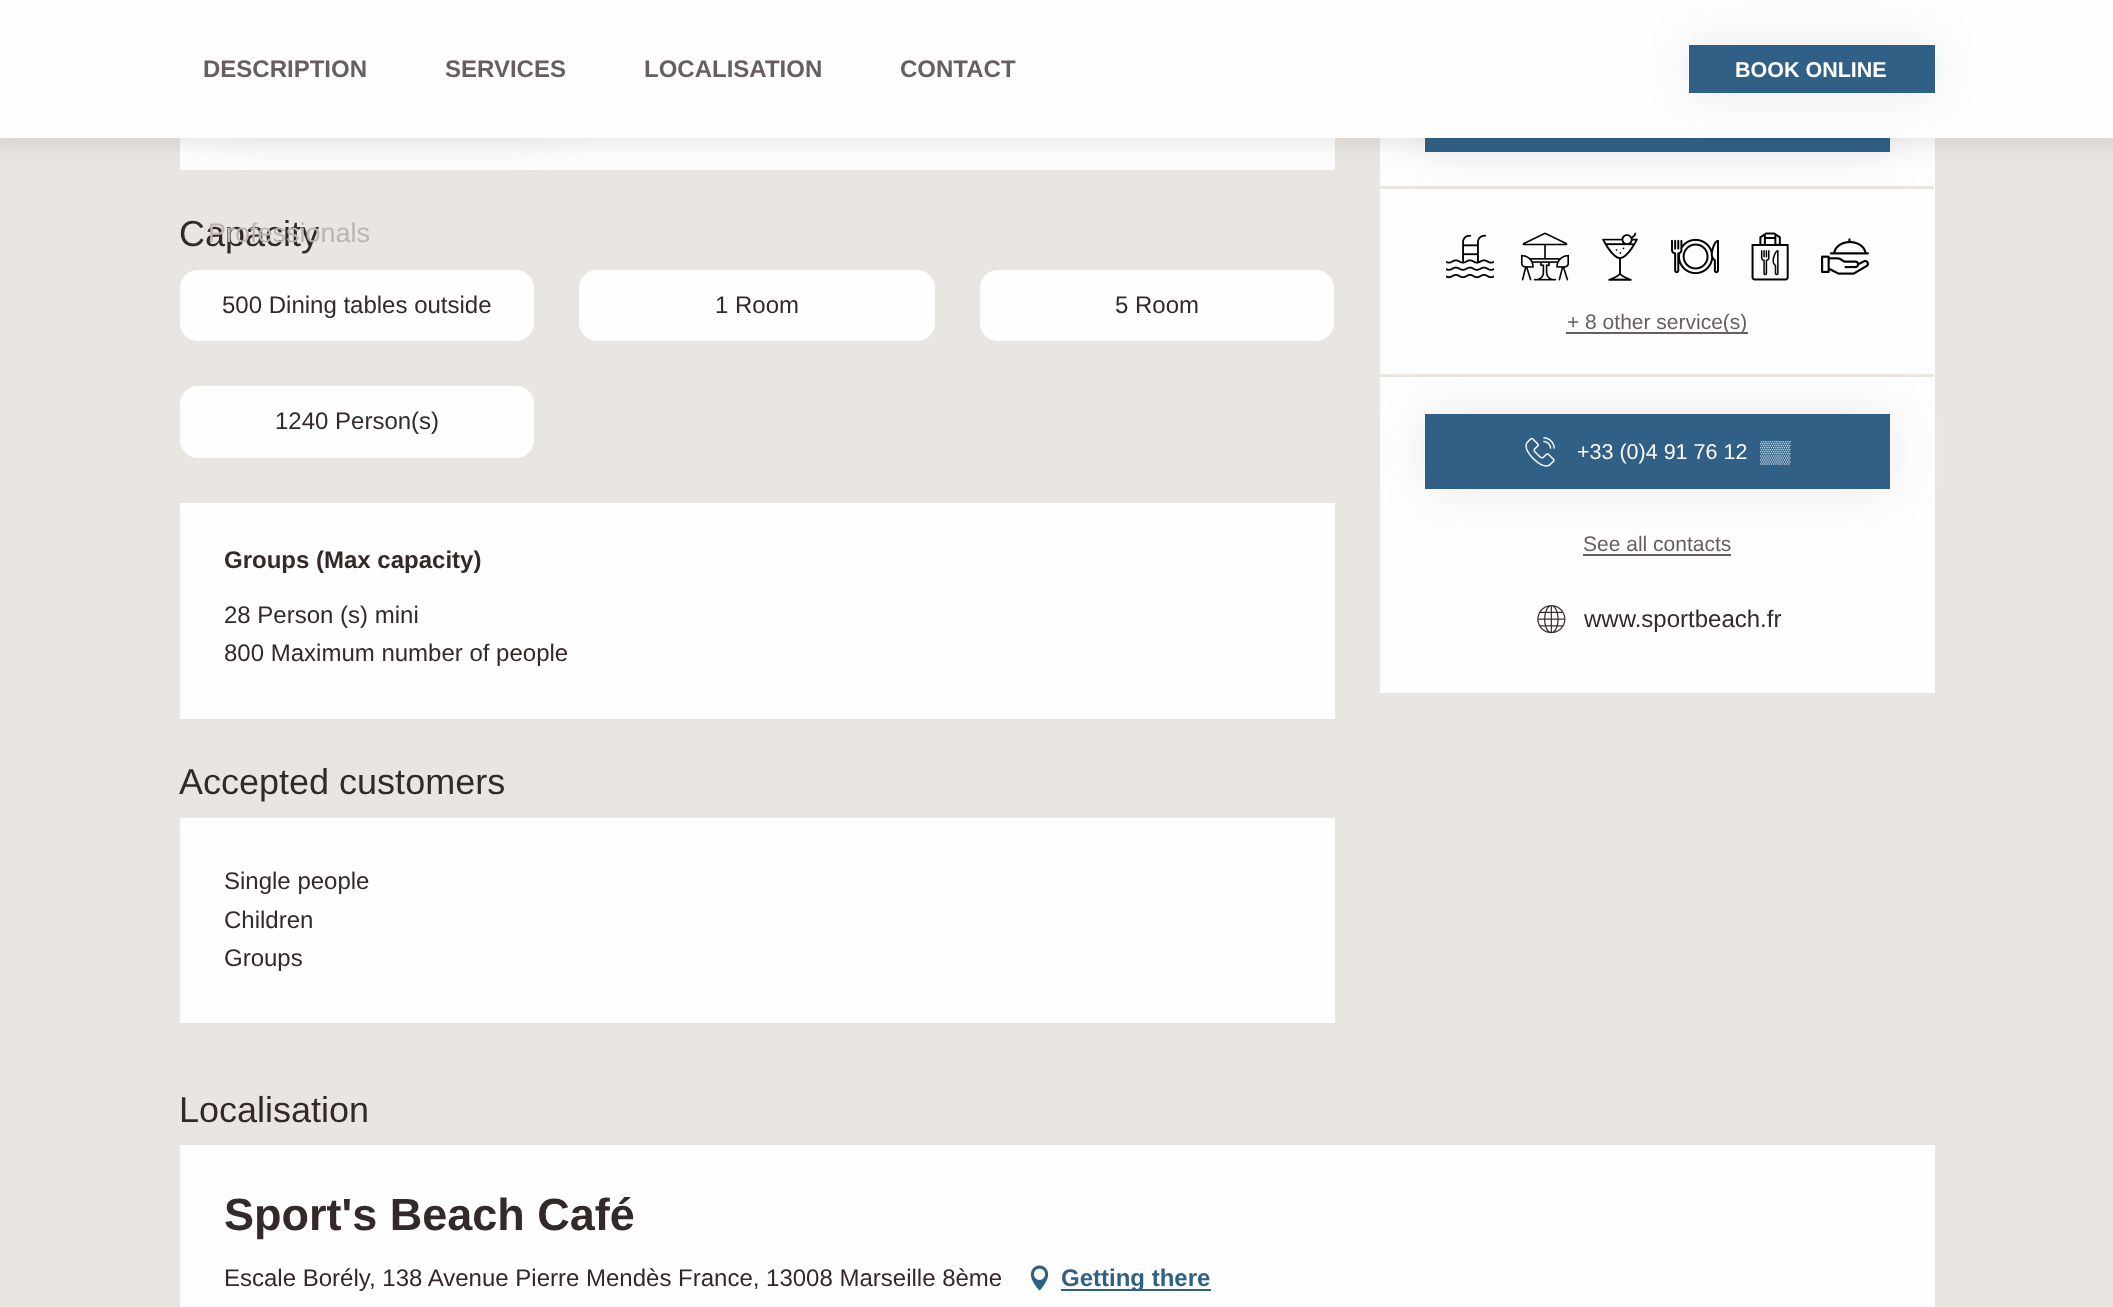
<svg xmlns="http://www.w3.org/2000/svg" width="2113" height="1307">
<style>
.a{font:bold 24px Liberation Sans;fill:#675e5e}
.b{font:bold 21.5px Liberation Sans;fill:#fefefe}
.c{font:36px Liberation Sans;fill:#342929}
.d{font:24px Liberation Sans;fill:#342929}
.e{font:bold 24px Liberation Sans;fill:#342929}
.f{font:21px Liberation Sans;fill:#675e5e}
.g{font:21.5px Liberation Sans;fill:#fefefe}
.h{font:bold 45px Liberation Sans;fill:#342929}
.i{font:bold 24px Liberation Sans;fill:#306085}
.j{font:27px Liberation Sans;fill:#bcb6b3}
</style>
<rect width="100%" height="100%" fill="#e9e5e1"/>
<path fill="#fefefe" d="M180 138h1155v32H180z"/>
<path fill="#3429291a" filter="blur(25.5px)" d="M225 50h327v75H225z"/>
<path fill="#fefefe" d="M1380 138h555v555H1380z"/>
<path fill="#3429291a" filter="blur(25.5px)" d="M1425 90h465v62H1425z"/>
<path fill="#306085" d="M1425 138h465v14H1425z"/>
<path fill="#34292926" filter="blur(15px)" d="M-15 -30h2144v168H-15z"/>
<path fill="#fefefe" d="M0 0h2113v138H0z"/>
<path fill="#3429291a" filter="blur(25.5px)" d="M1689 45h246v48H1689z"/>
<path fill="#306085" d="M1689 45h246v48H1689z"/>
<rect fill="#fefefe" x="180" y="270" width="354" height="71" rx="18"/>
<rect fill="#fefefe" x="579" y="270" width="356" height="71" rx="18"/>
<rect fill="#fefefe" x="980" y="270" width="354" height="71" rx="18"/>
<rect fill="#fefefe" x="180" y="386" width="354" height="72" rx="18"/>
<path fill="#fefefe" d="M180 503h1155v216H180z"/>
<path fill="#fefefe" d="M180 818h1155v205H180z"/>
<path fill="#e9e5e1" d="M1380 186h554v3H1380z"/>
<image href="1.png" x="1446" y="234" width="48" height="45"/>
<image href="2.png" x="1521" y="232" width="48" height="49"/>
<image href="3.png" x="1602" y="232" width="36" height="49"/>
<image href="4.png" x="1671" y="238" width="48" height="37"/>
<image href="5.png" x="1751" y="232" width="38" height="49"/>
<image href="6.png" x="1821" y="238" width="48" height="37"/>
<path fill="#675e5e" d="M1566 332h182v2H1566z"/>
<path fill="#e9e5e1" d="M1380 374h554v3H1380z"/>
<path fill="#675e5e" d="M1583 554h148v2H1583z"/>
<path fill="#3429291a" filter="blur(25.5px)" d="M1425 414h465v75H1425z"/>
<path fill="#306085" d="M1425 414h465v75H1425z"/>
<image href="7.png" x="1525" y="437" width="30" height="30"/>
<image href="8.png" x="1537" y="605" width="29" height="29"/>
<path fill="#fefefe" d="M180 1145h1755v162H180z"/>
<image href="9.png" x="1030" y="1265" width="19" height="26"/>
<path fill="#306085" d="M1061 1289h150v2H1061z"/>
<text class="a" x="203" y="77">DESCRIPTION</text>
<text class="a" x="445" y="77">SERVICES</text>
<text class="a" x="644" y="77">LOCALISATION</text>
<text class="a" x="900" y="77">CONTACT</text>
<text class="b" x="1735" y="77">BOOK ONLINE</text>
<text class="c" x="179" y="246">Capacity</text>
<text class="d" x="222" y="313">500 Dining tables outside</text>
<text class="d" x="715" y="313">1 Room</text>
<text class="d" x="1115" y="313">5 Room</text>
<text class="d" x="275" y="429">1240 Person(s)</text>
<text class="e" x="224" y="568">Groups (Max capacity)</text>
<text class="d" x="224" y="623">28 Person (s) mini</text>
<text class="d" x="224" y="661">800 Maximum number of people</text>
<text class="c" x="179" y="794">Accepted customers</text>
<text class="d" x="224" y="889">Single people</text>
<text class="d" x="224" y="928">Children</text>
<text class="d" x="224" y="966">Groups</text>
<text class="f" x="1567" y="329">+ 8 other service(s)</text>
<text class="g" x="1577" y="459">+33 (0)4 91 76 12</text>
<text class="g" x="1760" y="459">▒▒</text>
<text class="f" x="1583" y="551">See all contacts</text>
<text class="d" x="1584" y="627">www.sportbeach.fr</text>
<text class="c" x="179" y="1122">Localisation</text>
<text class="h" x="224" y="1230">Sport's Beach Café</text>
<text class="d" x="224" y="1286">Escale Borély, 138 Avenue Pierre Mendès France, 13008 Marseille 8ème</text>
<text class="i" x="1061" y="1286">Getting there</text>
<text class="j" x="208" y="242">Professionals</text>
</svg>
